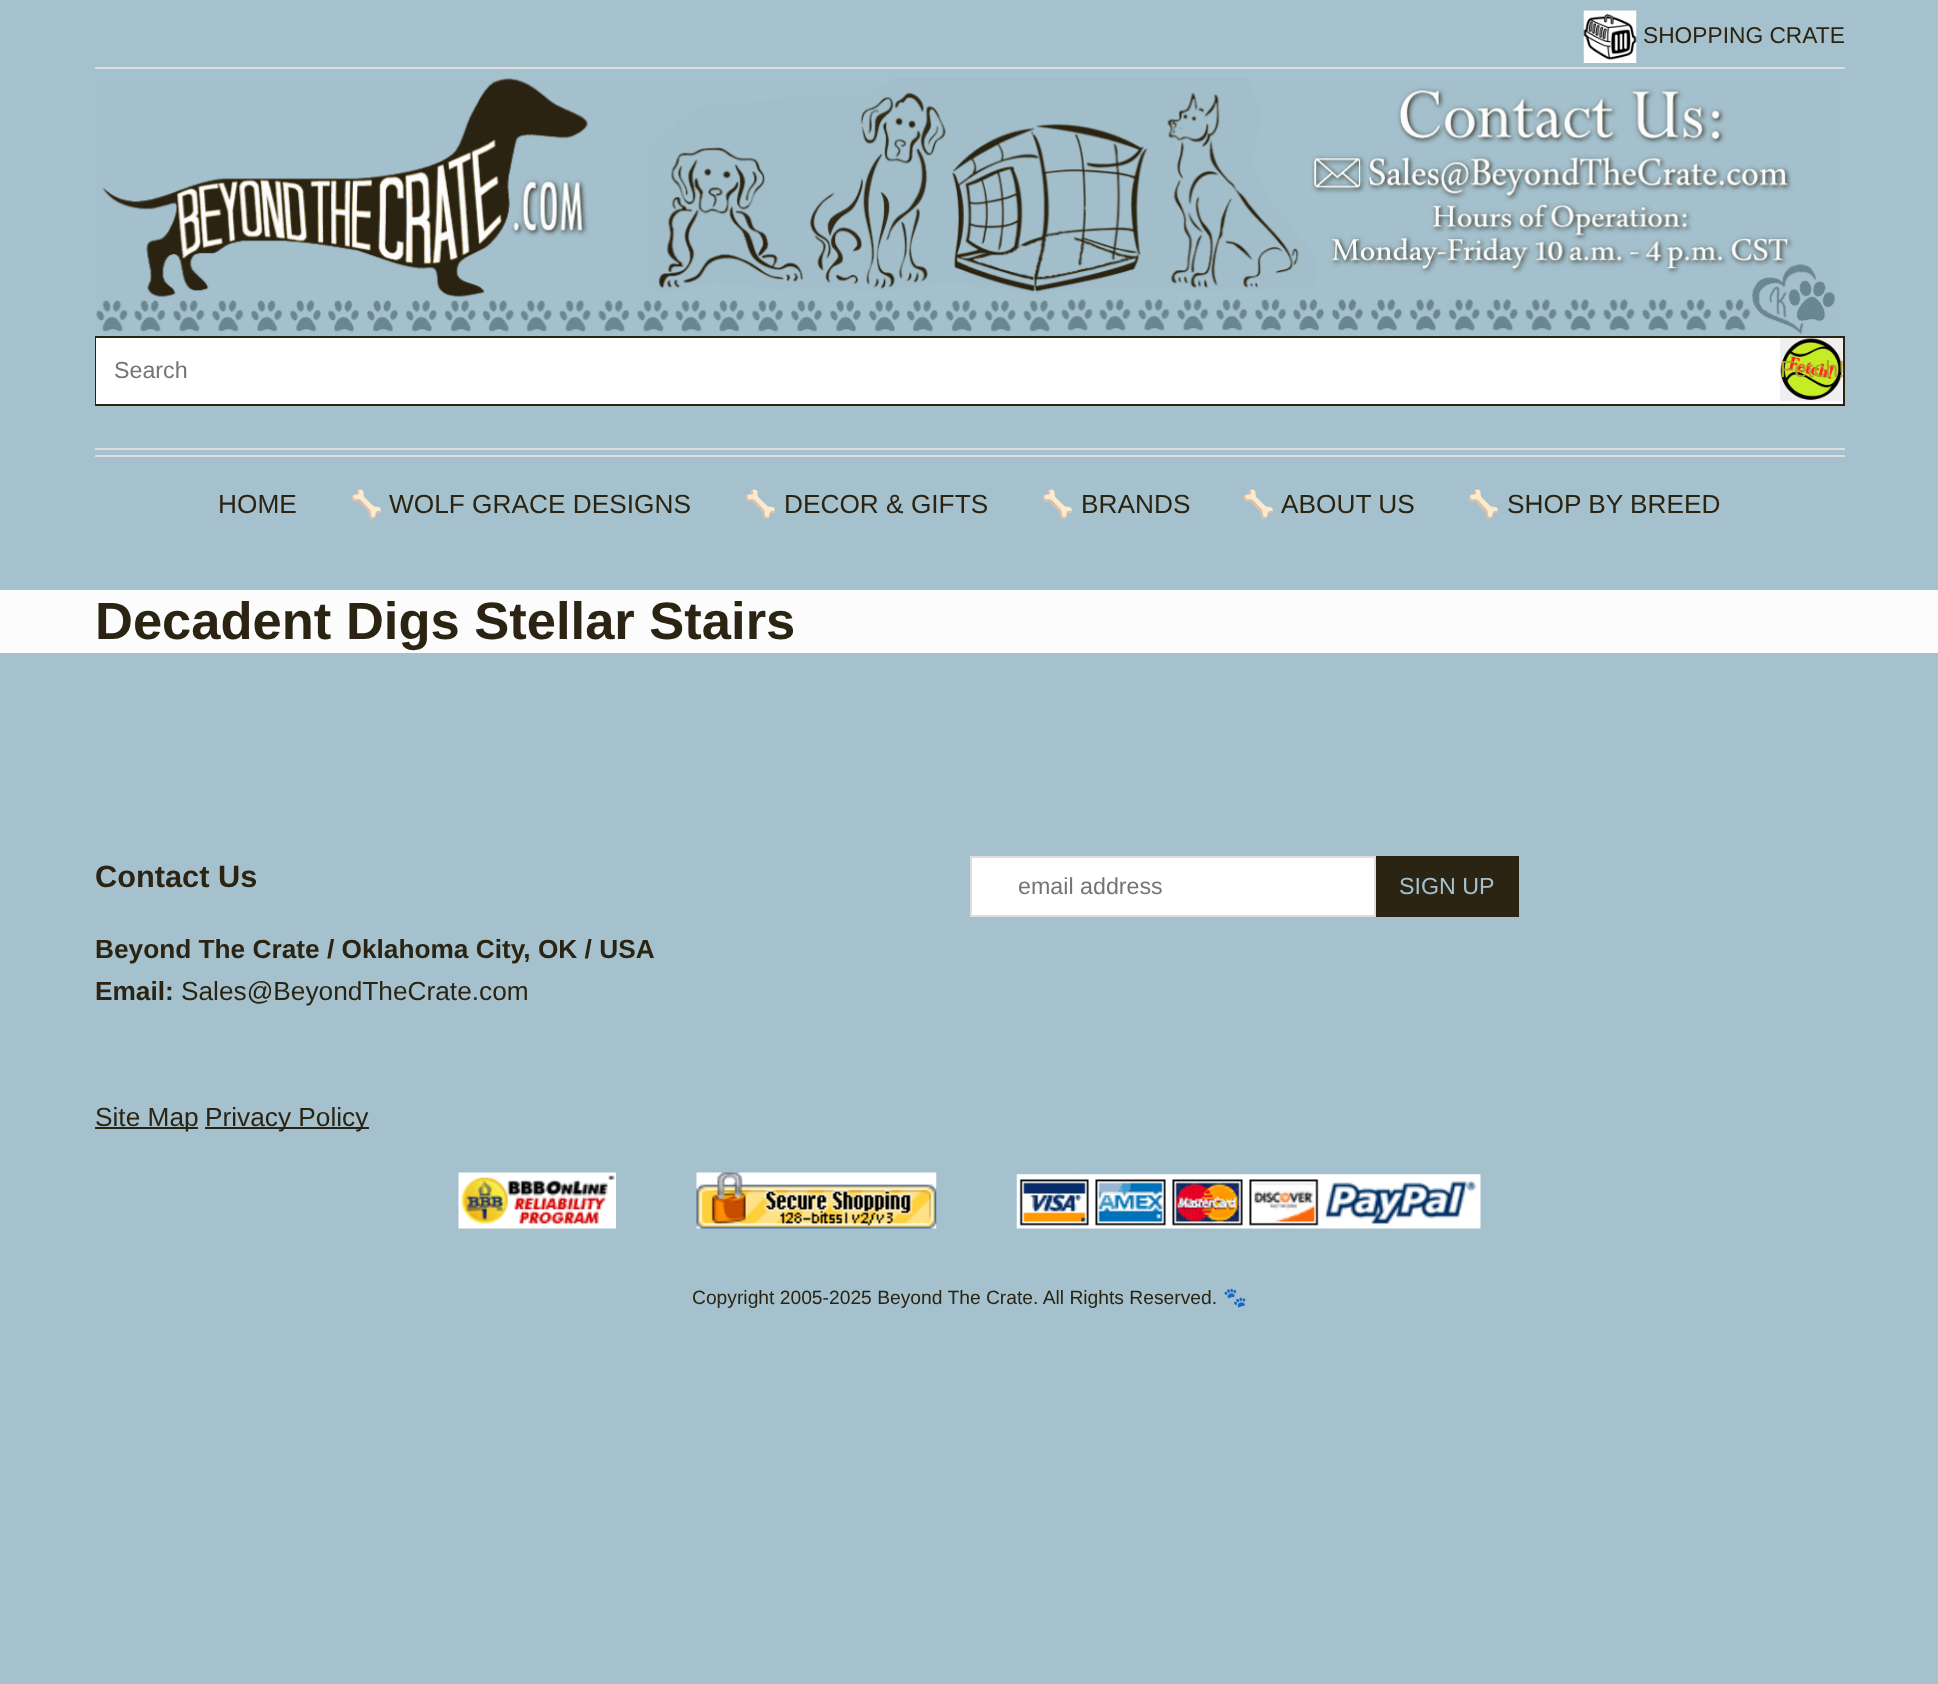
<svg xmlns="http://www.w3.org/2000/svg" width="1938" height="1684">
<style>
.a{font:22.75px Liberation Sans;fill:#2b2412}
.b{font:23.25px Liberation Sans;fill:#757575}
.c{font:23.25px Liberation Sans;fill:#b39f2e}
.d{font:26.25px Liberation Sans;fill:#2b2412}
.e{font:26.25px Noto Color Emoji;fill:#2b2412}
.f{font:bold 52.5px Liberation Sans;fill:#2b2412}
.g{font:bold 30.75px Liberation Sans;fill:#2b2412}
.h{font:bold 26.25px Liberation Sans;fill:#2b2412}
.i{font:23.25px Liberation Sans;fill:#a4c1cd}
.j{font:19.25px Liberation Sans;fill:#2b2412}
.k{font:19.25px Noto Color Emoji;fill:#2b2412}
</style>
<rect width="100%" height="100%" fill="#a4c1cd"/>
<image href="1.png" x="1583" y="10" width="54" height="53"/>
<path fill="#dedede" d="M95 67h1750v2H95z"/>
<path fill="#dedede" d="M95 448h1750v2H95z"/>
<image href="2.png" x="96" y="78" width="1740" height="256"/>
<path fill="#fff" d="M1780 401h63v3H1780z"/>
<path fill="none" stroke="#2b2412" stroke-width="2" d="M96 337h1748v68H96z"/>
<path fill="#fff" d="M96 338h1684v66H96z"/>
<path fill="#efefef" d="M1780 338h63v63H1780z"/>
<image href="3.png" x="1780" y="338" width="62" height="62"/>
<path fill="#dedede" d="M95 455h1750v2H95z"/>
<path fill="#fcfcfc" d="M0 590h1938v63H0z"/>
<path fill="#2b2412" d="M95 1127h103v2H95z"/>
<path fill="#2b2412" d="M205 1127h164v2H205z"/>
<path fill="#fff" stroke="#dedede" stroke-width="2" d="M971 857h404v59H971z"/>
<path fill="#2b2412" d="M1376 856h143v61H1376z"/>
<image href="4.png" x="458" y="1172" width="158" height="57"/>
<image href="5.png" x="696" y="1172" width="241" height="57"/>
<image href="6.png" x="1016" y="1174" width="465" height="55"/>
<text class="a" x="1643" y="43">SHOPPING CRATE</text>
<text class="b" x="114" y="378">Search</text>
<text class="c" x="1780" y="377">Fetch!</text>
<text class="d" x="218" y="513">HOME</text>
<text class="e" x="350" y="513">🦴</text>
<text class="d" x="389" y="513">WOLF GRACE DESIGNS</text>
<text class="e" x="744" y="513">🦴</text>
<text class="d" x="784" y="513">DECOR &amp; GIFTS</text>
<text class="e" x="1041" y="513">🦴</text>
<text class="d" x="1081" y="513">BRANDS</text>
<text class="e" x="1242" y="513">🦴</text>
<text class="d" x="1281" y="513">ABOUT US</text>
<text class="e" x="1467" y="513">🦴</text>
<text class="d" x="1507" y="513">SHOP BY BREED</text>
<text class="f" x="95" y="639">Decadent Digs Stellar Stairs</text>
<text class="g" x="95" y="887">Contact Us</text>
<text class="h" x="95" y="958">Beyond The Crate / Oklahoma City, OK / USA</text>
<text class="h" x="95" y="1000">Email:</text>
<text class="d" x="181" y="1000">Sales@BeyondTheCrate.com</text>
<text class="d" x="95" y="1126">Site Map</text>
<text class="d" x="205" y="1126">Privacy Policy</text>
<text class="b" x="1018" y="894">email address</text>
<text class="i" x="1399" y="894">SIGN UP</text>
<text class="j" x="692" y="1304">Copyright 2005-2025 Beyond The Crate. All Rights Reserved.</text>
<text class="k" x="1223" y="1304">🐾</text>
</svg>
